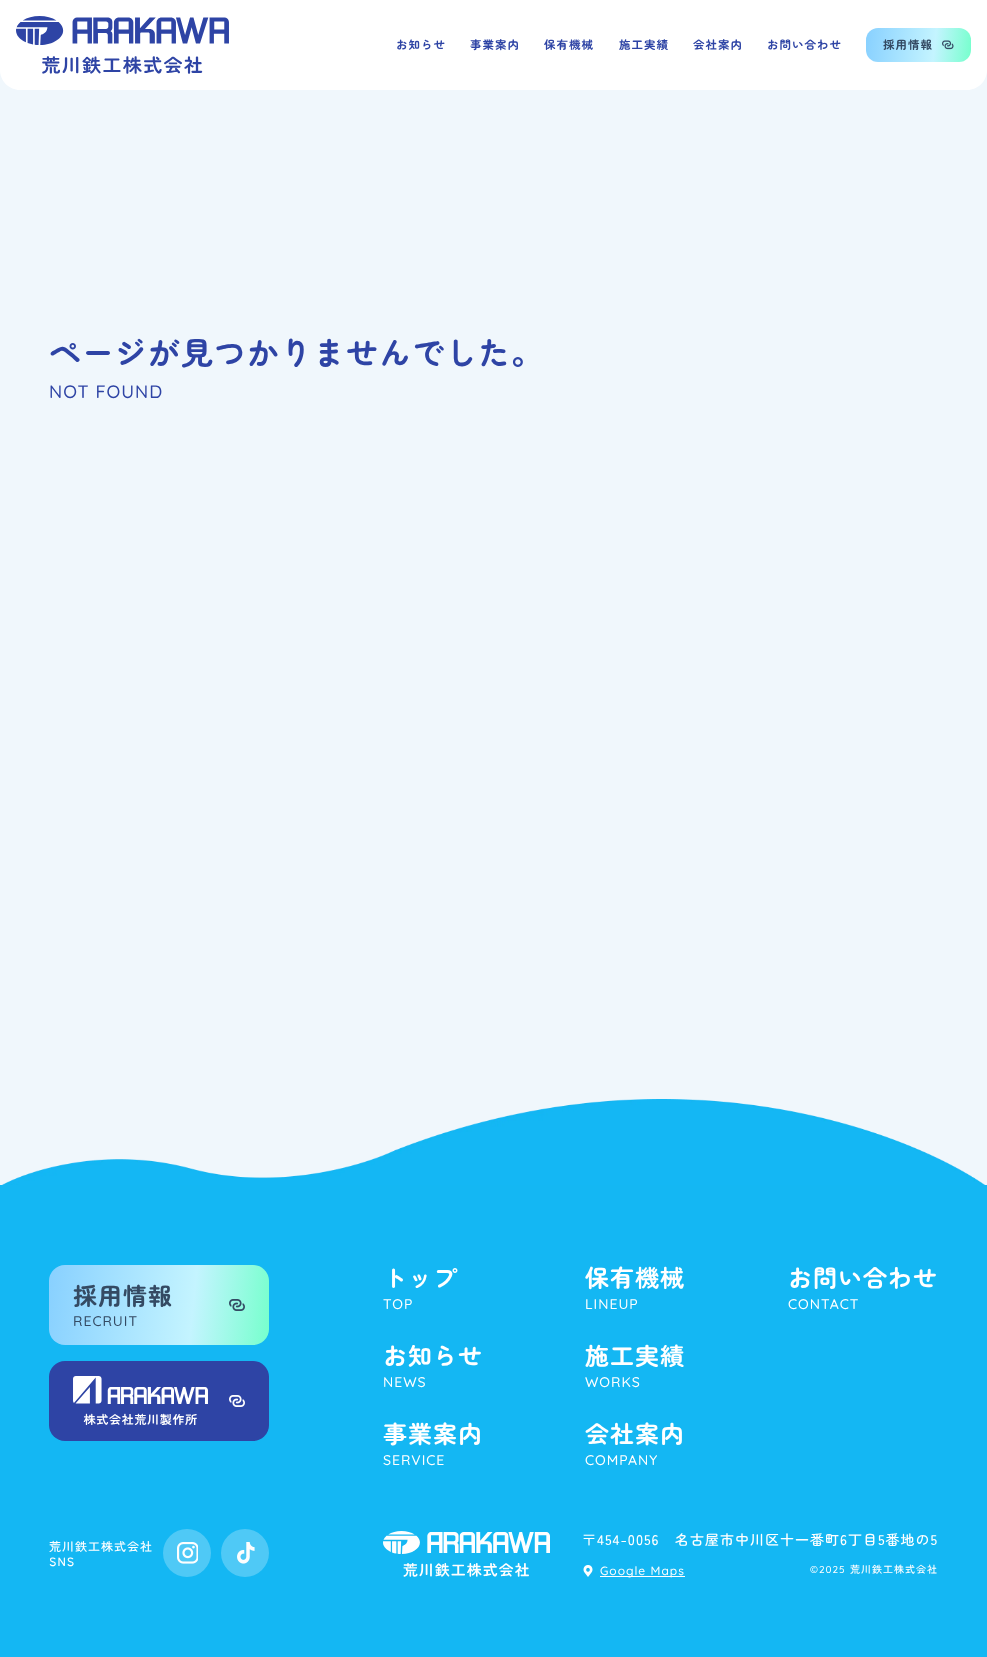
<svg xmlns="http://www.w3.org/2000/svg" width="987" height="1657">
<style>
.a{font:bold 11.5px Zen Maru Gothic;letter-spacing:1px;fill:#2e44a5}
.b{font:bold 11.5px Zen Maru Gothic;letter-spacing:1px;fill:#344a63}
.c{font:bold 32px Zen Maru Gothic;letter-spacing:1px;fill:#2e44a5}
.d{font:500 18px Quicksand;letter-spacing:1px;fill:#2e44a5}
.e{font:bold 24px Zen Maru Gothic;letter-spacing:1px;fill:#344a63}
.f{font:500 14px Quicksand;letter-spacing:1px;fill:#344a63}
.g{font:500 12px Zen Maru Gothic;letter-spacing:1px;fill:#fff}
.h{font:bold 24px Zen Maru Gothic;letter-spacing:1px;fill:#fff}
.i{font:500 14px Quicksand;letter-spacing:1px;fill:#fff}
.j{font:500 14px Zen Maru Gothic;letter-spacing:1px;fill:#fff}
.k{font:500 12px Quicksand;letter-spacing:1px;fill:#fff}
.l{font:500 10px Quicksand;letter-spacing:1px;fill:#fff}
.m{font:500 10px Zen Maru Gothic;letter-spacing:1px;fill:#fff}
</style>
<defs>
<linearGradient id="g1" gradientUnits="userSpaceOnUse" x1="865" y1="39" x2="972" y2="51"><stop offset="0.01" stop-color="#89d1ff"/><stop offset="0.65" stop-color="#c4f4ff"/><stop offset="0.99" stop-color="#78ffce"/></linearGradient>
<linearGradient id="g2" gradientUnits="userSpaceOnUse" x1="46" y1="1293" x2="272" y2="1317"><stop offset="0.01" stop-color="#89d1ff"/><stop offset="0.65" stop-color="#c4f4ff"/><stop offset="0.99" stop-color="#78ffce"/></linearGradient>
</defs>
<rect width="100%" height="100%" fill="#f0f7fc"/>
<path fill="#fff" d="M0 0h987v70c0 11-9 20-20 20h-947c-11 0-20-9-20-20z"/>
<image href="1.png" x="16" y="16" width="213" height="58"/>
<rect fill="url(#g1)" x="866" y="28" width="105" height="34" rx="12"/>
<image href="2.png" x="942" y="40" width="12" height="10"/>
<path fill="#14b7f3" d="M0 1185h987v472H0z"/>
<image href="3.png" x="2" y="1099" width="983" height="86"/>
<rect fill="url(#g2)" x="49" y="1265" width="220" height="80" rx="16"/>
<image href="4.png" x="229" y="1299" width="16" height="12"/>
<rect fill="#2e44a5" x="49" y="1361" width="220" height="80" rx="16"/>
<image href="5.png" x="73" y="1376" width="135" height="49"/>
<image href="6.png" x="229" y="1395" width="16" height="12"/>
<circle fill="#4fc9f6" cx="187" cy="1553" r="24"/>
<image href="7.png" x="177" y="1542" width="21" height="22"/>
<circle fill="#4fc9f6" cx="245" cy="1553" r="24"/>
<image href="8.png" x="237" y="1542" width="18" height="22"/>
<image href="9.png" x="383" y="1531" width="167" height="46"/>
<image href="10.png" x="583" y="1565" width="10" height="12"/>
<path fill="#fff" d="M600 1576h85v1H600z"/>
<text class="a" x="396" y="49">お知らせ</text>
<text class="a" x="470" y="49">事業案内</text>
<text class="a" x="544" y="49">保有機械</text>
<text class="a" x="619" y="49">施工実績</text>
<text class="a" x="693" y="49">会社案内</text>
<text class="a" x="767" y="49">お問い合わせ</text>
<text class="b" x="883" y="49">採用情報</text>
<text class="c" x="49" y="365">ページが見つかりませんでした。</text>
<text class="d" x="49" y="398">NOT FOUND</text>
<text class="e" x="73" y="1305">採用情報</text>
<text class="f" x="73" y="1326">RECRUIT</text>
<text class="g" x="49" y="1551">荒川鉄工株式会社</text>
<text class="g" x="49" y="1566">SNS</text>
<text class="h" x="383" y="1287">トップ</text>
<text class="i" x="383" y="1309">TOP</text>
<text class="h" x="383" y="1365">お知らせ</text>
<text class="i" x="383" y="1387">NEWS</text>
<text class="h" x="383" y="1443">事業案内</text>
<text class="i" x="383" y="1465">SERVICE</text>
<text class="h" x="585" y="1287">保有機械</text>
<text class="i" x="585" y="1309">LINEUP</text>
<text class="h" x="585" y="1365">施工実績</text>
<text class="i" x="585" y="1387">WORKS</text>
<text class="h" x="585" y="1443">会社案内</text>
<text class="i" x="585" y="1465">COMPANY</text>
<text class="h" x="788" y="1287">お問い合わせ</text>
<text class="i" x="788" y="1309">CONTACT</text>
<text class="j" x="582" y="1545">〒454-0056</text>
<text class="j" x="675" y="1545">名古屋市中川区十一番町6丁目5番地の5</text>
<text class="k" x="600" y="1575">Google Maps</text>
<text class="l" x="810" y="1573">©2025</text>
<text class="m" x="850" y="1573">荒川鉄工株式会社</text>
</svg>
